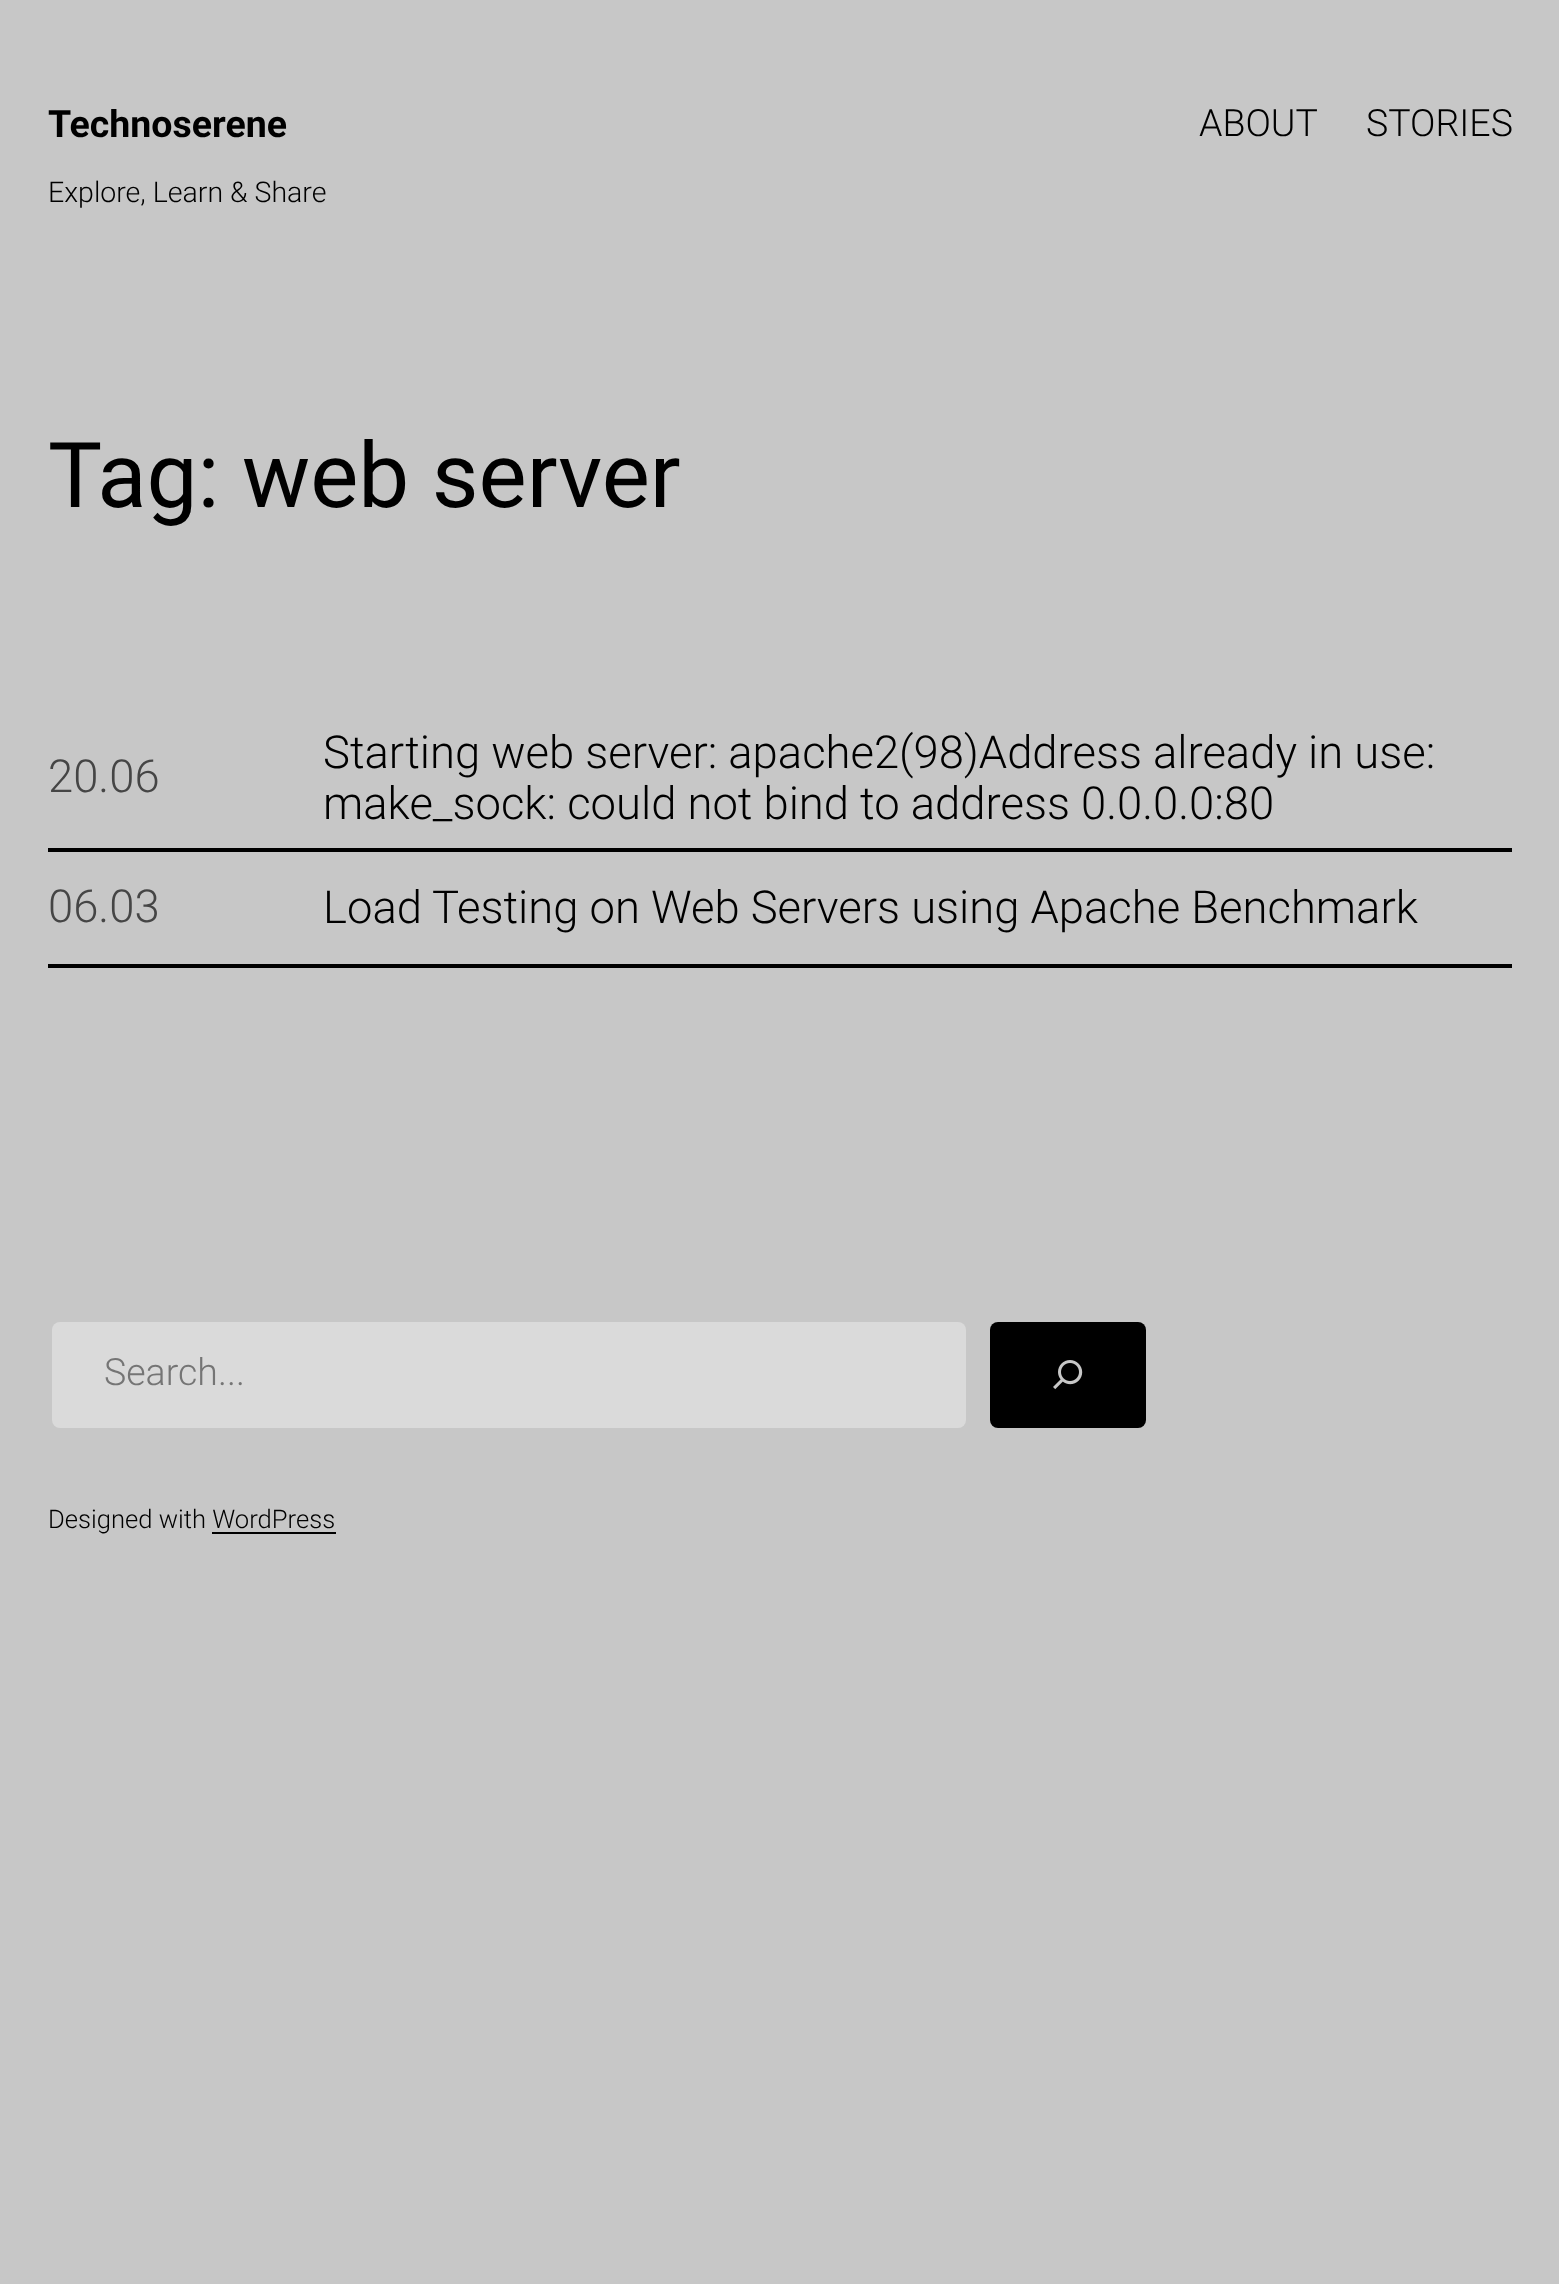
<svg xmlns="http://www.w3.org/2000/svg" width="1559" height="2284">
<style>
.a{font:bold 37.5px Roboto;fill:#000}
.b{font:300 37.5px Roboto;fill:#000}
.c{font:300 28.5px Roboto;fill:#000}
.d{font:90.75px Roboto;fill:#000}
.e{font:300 45.4px Roboto;fill:#454545}
.f{font:300 45.4px Roboto;fill:#000}
.g{font:300 37.5px Roboto;fill:#757575}
.h{font:300 25.6px Roboto;fill:#000}
</style>
<rect width="100%" height="100%" fill="#c7c7c7"/>
<path fill="#000" d="M48 848h1464v4H48z"/>
<path fill="#000" d="M48 964h1464v4H48z"/>
<rect fill="#dadada" x="52" y="1322" width="914" height="106" rx="8"/>
<rect fill="#000" x="990" y="1322" width="156" height="106" rx="8"/>
<image href="1.png" x="1053" y="1360" width="30" height="30"/>
<path fill="#000" d="M212 1532h124v2H212z"/>
<text class="a" x="48" y="137">Technoserene</text>
<text class="b" x="1199" y="136">ABOUT</text>
<text class="b" x="1366" y="136">STORIES</text>
<text class="c" x="48" y="202">Explore, Learn &amp; Share</text>
<text class="d" x="48" y="507">Tag: web server</text>
<text class="e" x="48" y="792">20.06</text>
<text class="f" x="323" y="768">Starting web server: apache2(98)Address already in use:</text>
<text class="f" x="323" y="819">make_sock: could not bind to address 0.0.0.0:80</text>
<text class="e" x="48" y="922">06.03</text>
<text class="f" x="323" y="923">Load Testing on Web Servers using Apache Benchmark</text>
<text class="g" x="104" y="1385">Search...</text>
<text class="h" x="48" y="1528">Designed with WordPress</text>
</svg>
